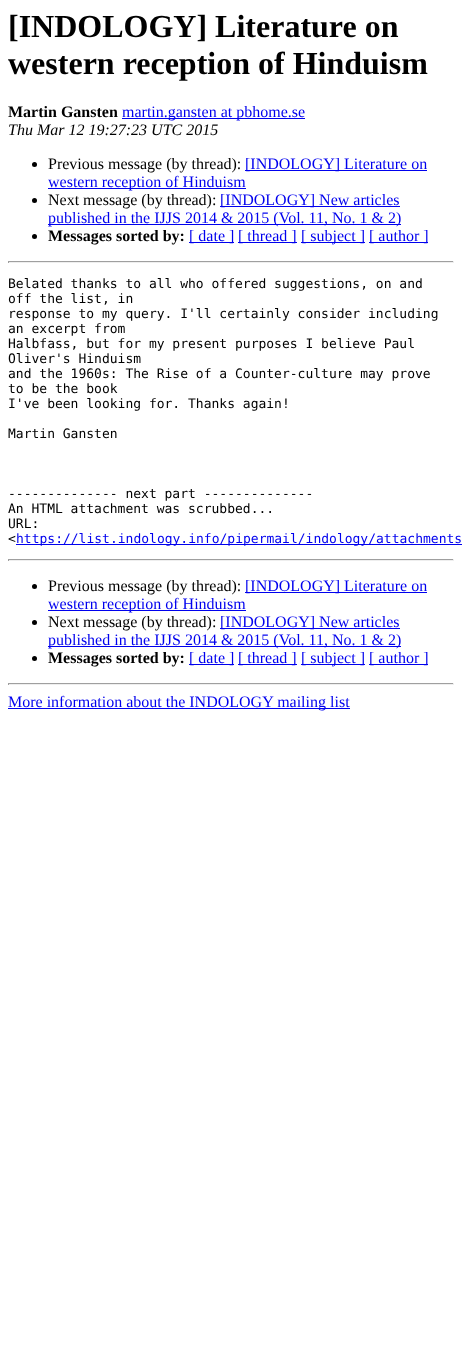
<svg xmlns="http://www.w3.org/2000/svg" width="462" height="1367">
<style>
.a{font:bold 32px Liberation Serif;fill:#000}
.b{font:bold 16px Liberation Serif;fill:#000}
.c{font:16px Liberation Serif;fill:#00e}
.d{font:italic 16px Liberation Serif;fill:#000}
.e{font:16px Liberation Serif;fill:#000}
.f{font:13px DejaVu Sans Mono;fill:#000}
.g{font:13px DejaVu Sans Mono;fill:#00e}
</style>
<rect width="100%" height="100%" fill="#fff"/>
<path fill="#00e" d="M122 118h183v1H122z"/>
<circle fill="#000" cx="34.5" cy="164.5" r="2.5"/>
<path fill="#00e" d="M245 170h182v1H245z"/>
<path fill="#00e" d="M48 188h198v1H48z"/>
<circle fill="#000" cx="34.5" cy="200.5" r="2.5"/>
<path fill="#00e" d="M220 206h180v1H220z"/>
<path fill="#00e" d="M48 224h353v1H48z"/>
<circle fill="#000" cx="34.5" cy="236.5" r="2.5"/>
<path fill="#00e" d="M189 242h45v1H189z"/>
<path fill="#00e" d="M238 242h59v1H238z"/>
<path fill="#00e" d="M301 242h64v1H301z"/>
<path fill="#00e" d="M369 242h59v1H369z"/>
<path fill="#9f9f9f" d="M8 261h446v1H8z"/>
<path fill="#eee" d="M453 261h1v2H453z"/>
<path fill="#eee" d="M8 262h446v1H8z"/>
<path fill="#9f9f9f" d="M8 261h1v2H8z"/>
<path fill="#00e" d="M16 544h446v1H16z"/>
<path fill="#9f9f9f" d="M8 559h446v1H8z"/>
<path fill="#eee" d="M453 559h1v2H453z"/>
<path fill="#eee" d="M8 560h446v1H8z"/>
<path fill="#9f9f9f" d="M8 559h1v2H8z"/>
<circle fill="#000" cx="34.5" cy="586.5" r="2.5"/>
<path fill="#00e" d="M245 592h182v1H245z"/>
<path fill="#00e" d="M48 610h198v1H48z"/>
<circle fill="#000" cx="34.5" cy="622.5" r="2.5"/>
<path fill="#00e" d="M220 628h180v1H220z"/>
<path fill="#00e" d="M48 646h353v1H48z"/>
<circle fill="#000" cx="34.5" cy="658.5" r="2.5"/>
<path fill="#00e" d="M189 664h45v1H189z"/>
<path fill="#00e" d="M238 664h59v1H238z"/>
<path fill="#00e" d="M301 664h64v1H301z"/>
<path fill="#00e" d="M369 664h59v1H369z"/>
<path fill="#9f9f9f" d="M8 683h446v1H8z"/>
<path fill="#eee" d="M453 683h1v2H453z"/>
<path fill="#eee" d="M8 684h446v1H8z"/>
<path fill="#9f9f9f" d="M8 683h1v2H8z"/>
<path fill="#00e" d="M8 708h342v1H8z"/>
<text class="a" x="8" y="37">[INDOLOGY] Literature on</text>
<text class="a" x="8" y="74">western reception of Hinduism</text>
<text class="b" x="8" y="117">Martin Gansten</text>
<text class="c" x="122" y="117">martin.gansten at pbhome.se</text>
<text class="d" x="8" y="135">Thu Mar 12 19:27:23 UTC 2015</text>
<text class="e" x="48" y="169">Previous message (by thread):</text>
<text class="c" x="245" y="169">[INDOLOGY] Literature on</text>
<text class="c" x="48" y="187">western reception of Hinduism</text>
<text class="e" x="48" y="205">Next message (by thread):</text>
<text class="c" x="220" y="205">[INDOLOGY] New articles</text>
<text class="c" x="48" y="223">published in the IJJS 2014 &amp; 2015 (Vol. 11, No. 1 &amp; 2)</text>
<text class="b" x="48" y="241">Messages sorted by:</text>
<text class="c" x="189" y="241">[ date ]</text>
<text class="c" x="238" y="241">[ thread ]</text>
<text class="c" x="301" y="241">[ subject ]</text>
<text class="c" x="369" y="241">[ author ]</text>
<text class="f" x="8" y="288">Belated thanks to all who offered suggestions, on and</text>
<text class="f" x="8" y="303">off the list, in</text>
<text class="f" x="8" y="318">response to my query. I'll certainly consider including</text>
<text class="f" x="8" y="333">an excerpt from</text>
<text class="f" x="8" y="348">Halbfass, but for my present purposes I believe Paul</text>
<text class="f" x="8" y="363">Oliver's Hinduism</text>
<text class="f" x="8" y="378">and the 1960s: The Rise of a Counter-culture may prove</text>
<text class="f" x="8" y="393">to be the book</text>
<text class="f" x="8" y="408">I've been looking for. Thanks again!</text>
<text class="f" x="8" y="438">Martin Gansten</text>
<text class="f" x="8" y="498">-------------- next part --------------</text>
<text class="f" x="8" y="513">An HTML attachment was scrubbed...</text>
<text class="f" x="8" y="528">URL:</text>
<text class="f" x="8" y="543">&lt;</text>
<text class="g" x="16" y="543">https://list.indology.info/pipermail/indology/attachments</text>
<text class="e" x="48" y="591">Previous message (by thread):</text>
<text class="c" x="245" y="591">[INDOLOGY] Literature on</text>
<text class="c" x="48" y="609">western reception of Hinduism</text>
<text class="e" x="48" y="627">Next message (by thread):</text>
<text class="c" x="220" y="627">[INDOLOGY] New articles</text>
<text class="c" x="48" y="645">published in the IJJS 2014 &amp; 2015 (Vol. 11, No. 1 &amp; 2)</text>
<text class="b" x="48" y="663">Messages sorted by:</text>
<text class="c" x="189" y="663">[ date ]</text>
<text class="c" x="238" y="663">[ thread ]</text>
<text class="c" x="301" y="663">[ subject ]</text>
<text class="c" x="369" y="663">[ author ]</text>
<text class="c" x="8" y="707">More information about the INDOLOGY mailing list</text>
</svg>
